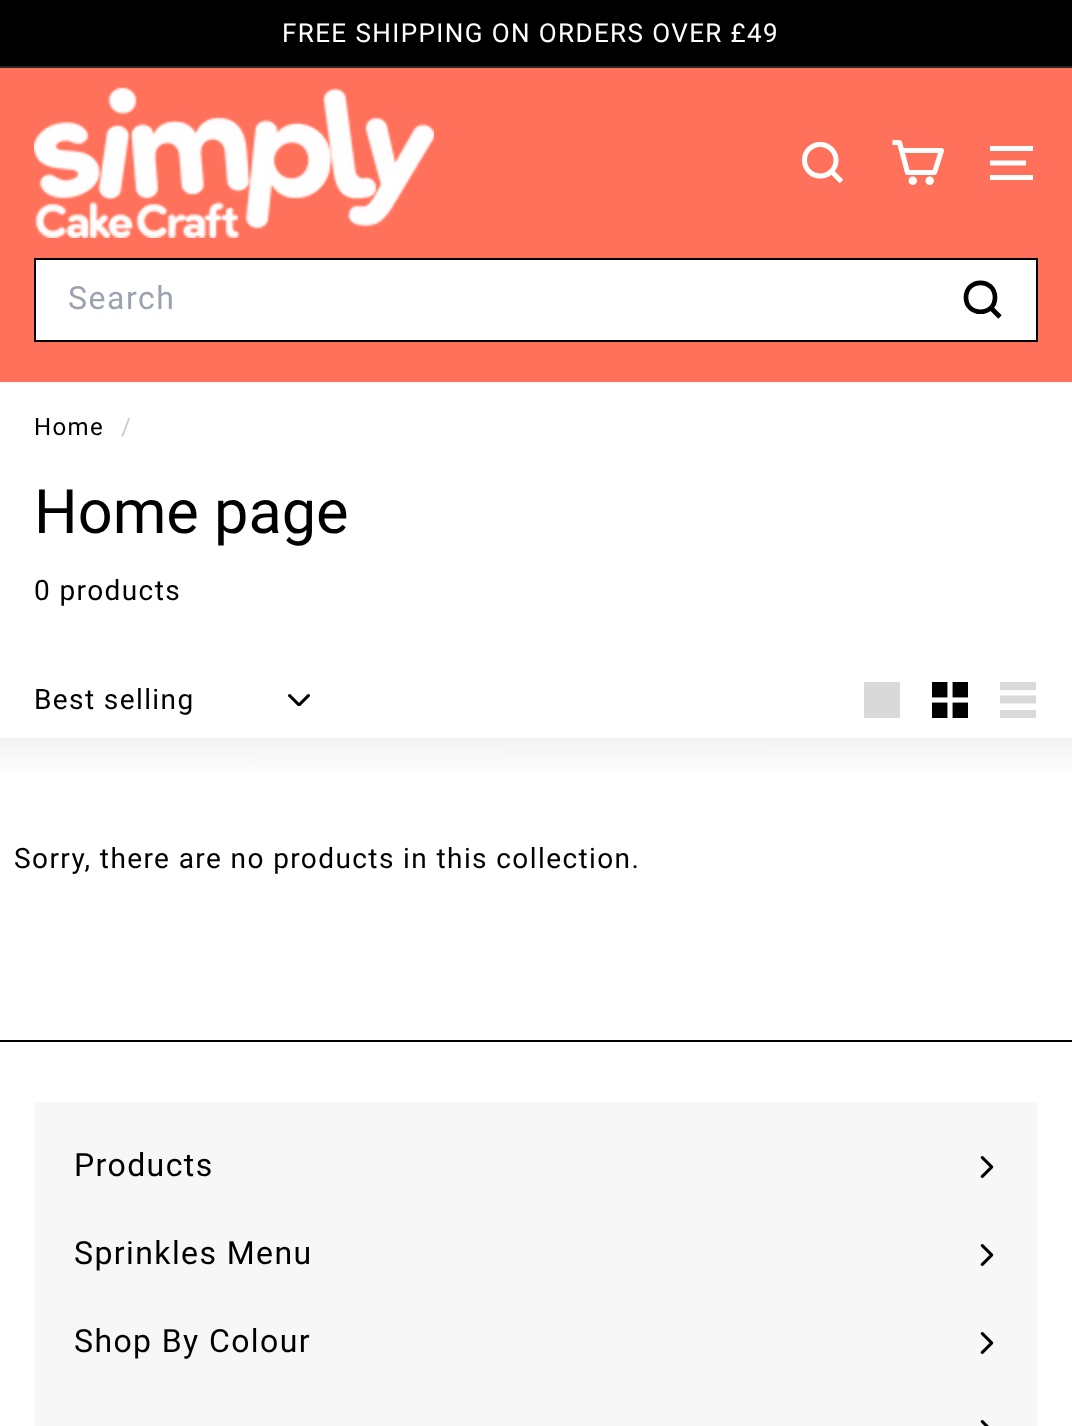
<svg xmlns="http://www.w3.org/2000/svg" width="1072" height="1426">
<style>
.a{font:26px Roboto;letter-spacing:1.4px;fill:#fff}
.b{font:32px Roboto;letter-spacing:1.5px;fill:#9ca3af}
.c{font:24px Roboto;letter-spacing:1.4px;fill:#000}
.d{font:24px Roboto;letter-spacing:1.4px;fill:#ccc}
.e{font:61.25px Roboto;fill:#000}
.f{font:28px Roboto;letter-spacing:1.4px;fill:#000}
.g{font:32px Roboto;letter-spacing:1.4px;fill:#000}
</style>
<defs>
<linearGradient id="g1" gradientUnits="userSpaceOnUse" x1="536" y1="738" x2="536" y2="778"><stop offset="0" stop-color="#f2f2f2"/><stop offset="1" stop-color="#fff"/></linearGradient>
</defs>
<rect width="100%" height="100%" fill="#fff"/>
<path fill="#f7f7f7" d="M34 1102h1004v324H34z"/>
<path fill="#000" d="M0 0h1072v66H0z"/>
<path fill="#262626" d="M0 66h1072v2H0z"/>
<path fill="#ff715b" d="M0 68h1072v314H0z"/>
<image href="1.png" x="34" y="87" width="400" height="151"/>
<path fill="none" stroke="#fff" stroke-width="5.1" stroke-linejoin="round" d="M836 160c0 9-7 16-16 16c-8.5 0-15.5-7-15.5-16c0-8.5 7-15.5 15.5-15.5c9 0 16 7 16 15.5m5.5 21.5l-10-10"/>
<path fill="none" stroke="#fff" stroke-width="5.1" stroke-linejoin="round" d="M902 150.5h39.5l-7 22h-27l-8-30h-7"/>
<circle fill="#fff" stroke="#fff" stroke-width="5.1" cx="912.8" cy="180.7" r="1.7"/>
<circle fill="#fff" stroke="#fff" stroke-width="5.1" cx="929.7" cy="180.7" r="1.7"/>
<path fill="#fff" d="M990 146h43v5H990z"/>
<path fill="none" stroke="#fff" stroke-width="5.1" stroke-linejoin="round" d="M990 163h36"/>
<path fill="#fff" d="M990 175h43v5H990z"/>
<path fill="#fff" stroke="#000" stroke-width="2" d="M35 259h1002v82H35z"/>
<path fill="none" stroke="#000" stroke-width="4.7" stroke-linejoin="round" d="M995 297.5c0 19-29 19-29 0c0-19.5 29-19.5 29 0m5 19.5l-9-9"/>
<image href="2.png" x="288" y="694" width="22" height="12"/>
<path fill="#d9d9d9" d="M864 682h36v36H864z"/>
<image href="3.png" x="932" y="682" width="36" height="36"/>
<path fill="#d9d9d9" d="M1000 682h36v8h-36zm0 13.5h36v8h-36zm0 14.5h36v8h-36z"/>
<path fill="url(#g1)" d="M0 738h1072v32H0z"/>
<path fill="#000" d="M0 1040h1072v2H0z"/>
<image href="4.png" x="980" y="1156" width="14" height="22"/>
<image href="4.png" x="980" y="1244" width="14" height="22"/>
<image href="4.png" x="980" y="1332" width="14" height="22"/>
<image href="5.png" x="980" y="1420" width="9" height="6"/>
<text class="a" x="282" y="42">FREE SHIPPING ON ORDERS OVER £49</text>
<text class="b" x="68" y="309">Search</text>
<text class="c" x="34" y="435">Home</text>
<text class="d" x="121" y="435">/</text>
<text class="e" x="34" y="533">Home page</text>
<text class="f" x="34" y="600">0 products</text>
<text class="f" x="34" y="709">Best selling</text>
<text class="f" x="14" y="868">Sorry, there are no products in this collection.</text>
<text class="g" x="74" y="1176">Products</text>
<text class="g" x="74" y="1264">Sprinkles Menu</text>
<text class="g" x="74" y="1352">Shop By Colour</text>
</svg>
